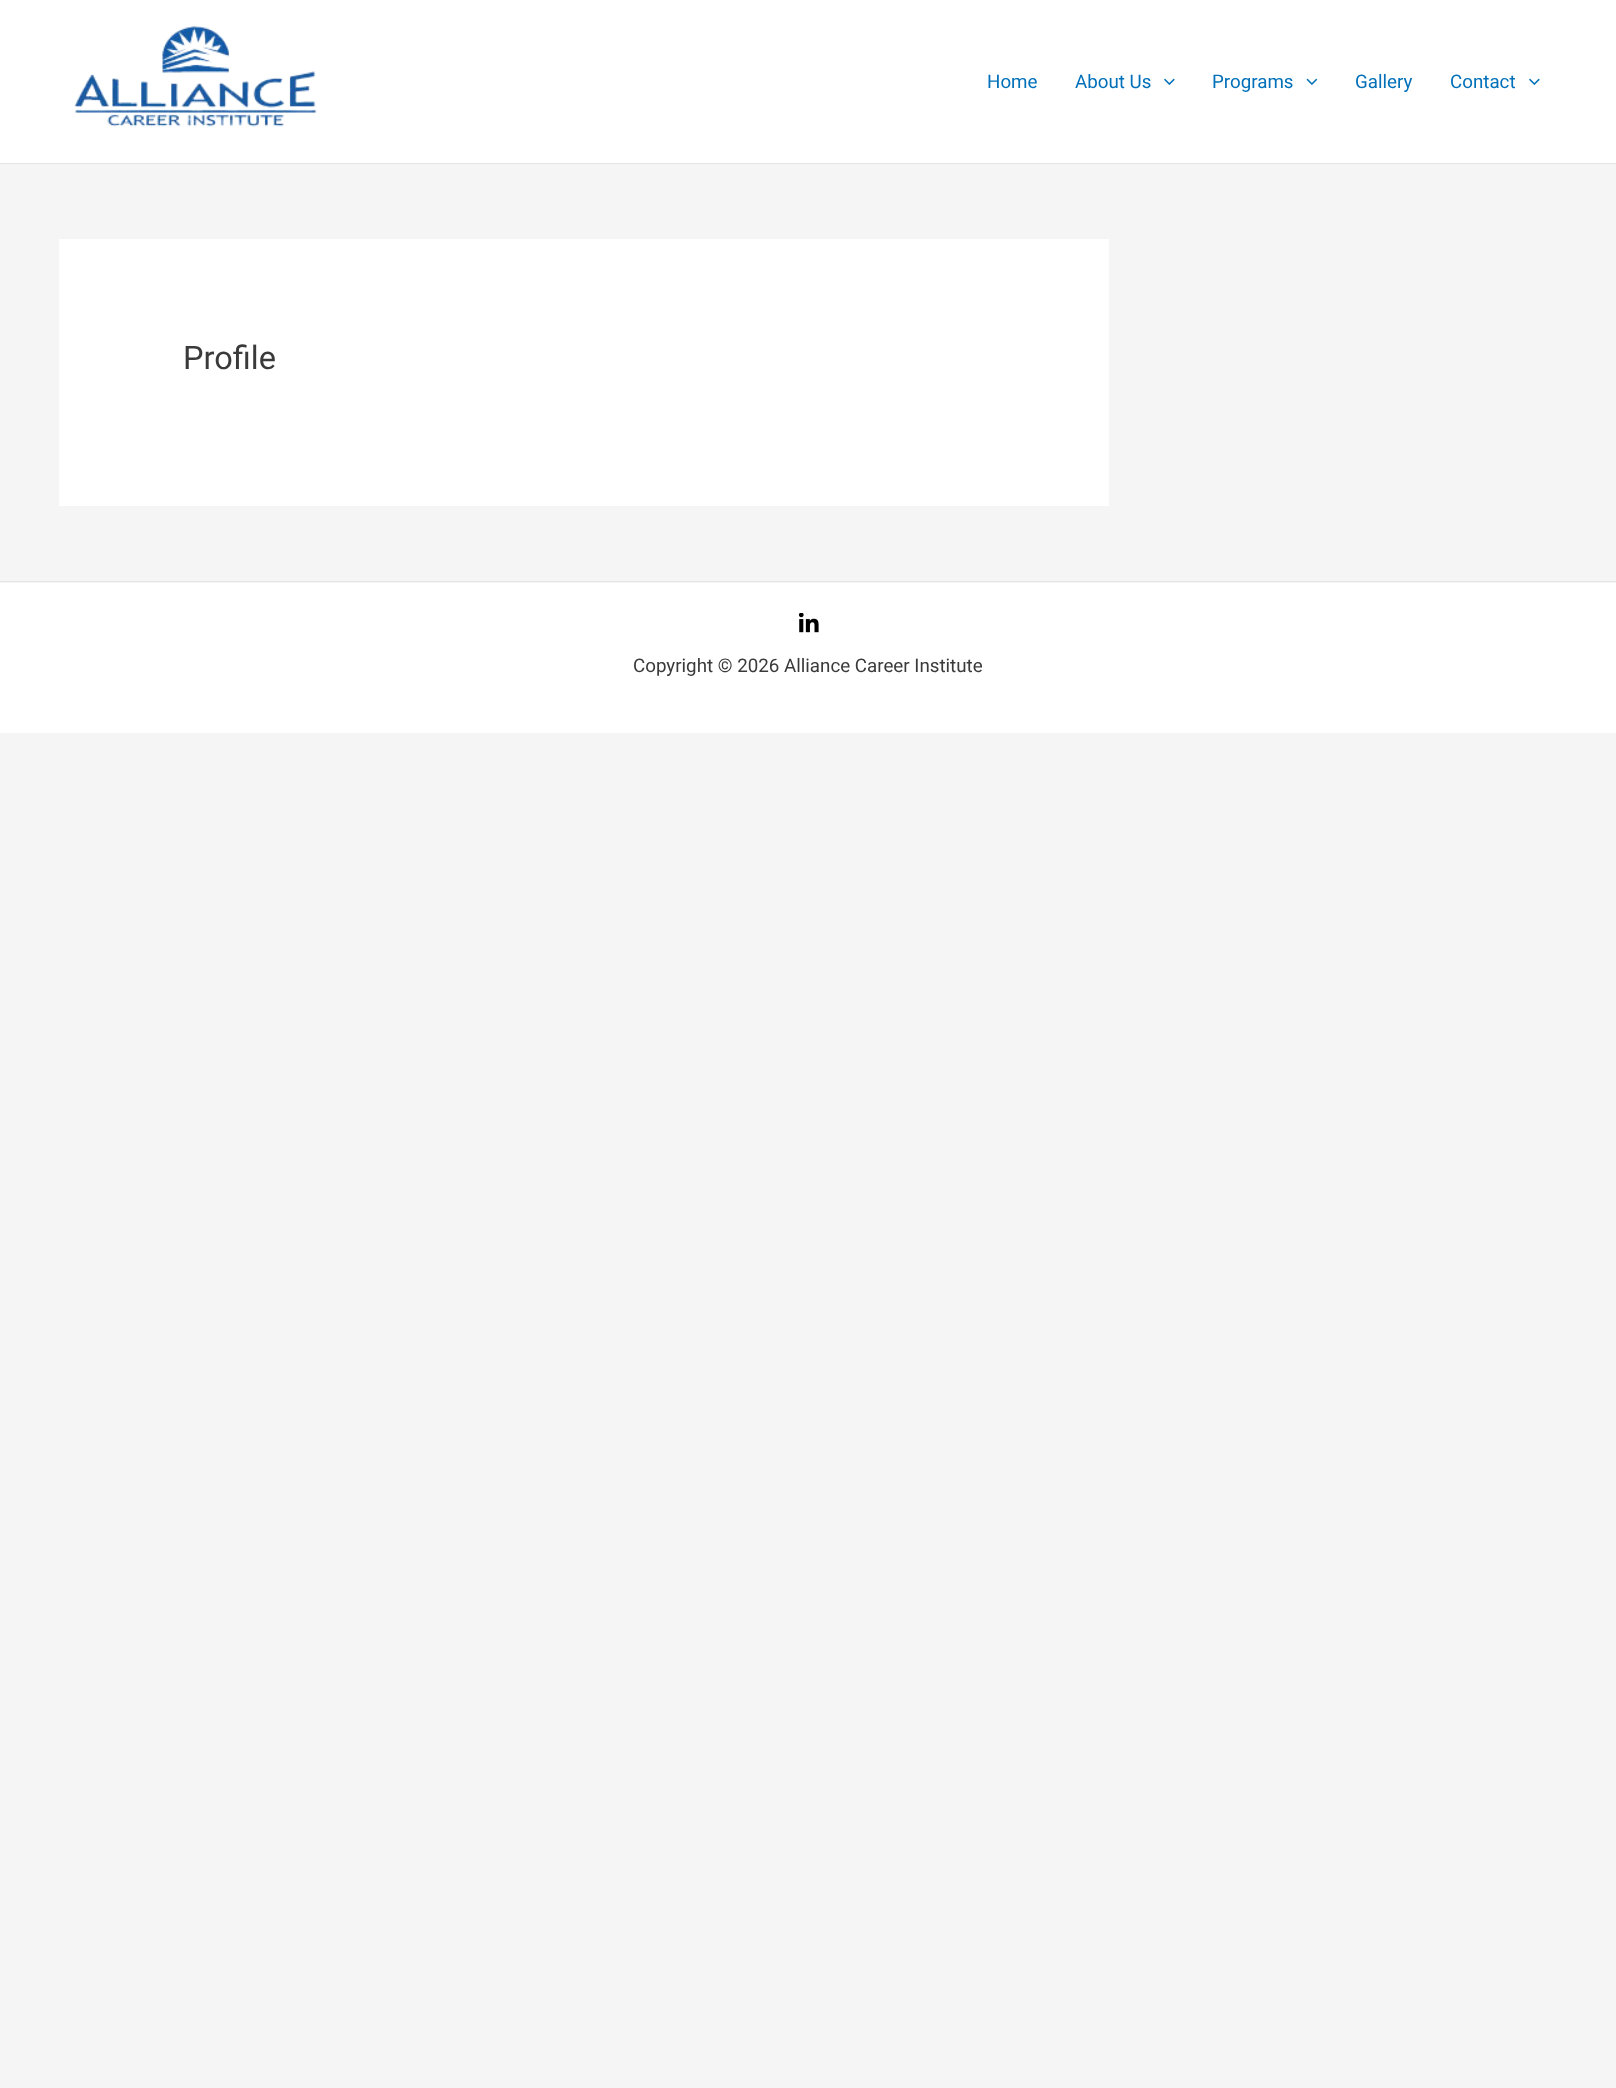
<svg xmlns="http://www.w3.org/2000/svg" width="1616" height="2088">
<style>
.a{font:18.75px Roboto;fill:#0170b9}
.b{font:32.5px Roboto;fill:#3a3a3a}
.c{font:18.75px Roboto;fill:#3a3a3a}
</style>
<rect width="100%" height="100%" fill="#f5f5f5"/>
<path fill="#fff" d="M0 0h1616v163H0z"/>
<path fill="#e5e5e5" d="M0 163h1616v1H0z"/>
<image href="1.png" x="74" y="26" width="243" height="101"/>
<image href="2.png" x="1164" y="78" width="11" height="7"/>
<image href="3.png" x="1306" y="78" width="12" height="7"/>
<image href="2.png" x="1529" y="78" width="11" height="7"/>
<path fill="#fff" d="M59 239h1050v267H59z"/>
<path fill="#fff" d="M0 583h1616v150H0z"/>
<path fill="#e5e5e5" d="M0 581h1616v1H0z"/>
<image href="4.png" x="798" y="613" width="21" height="20"/>
<text class="a" x="987" y="88">Home</text>
<text class="a" x="1075" y="88">About Us</text>
<text class="a" x="1212" y="88">Programs</text>
<text class="a" x="1355" y="88">Gallery</text>
<text class="a" x="1450" y="88">Contact</text>
<text class="b" x="183" y="369">Profile</text>
<text class="c" x="633" y="672">Copyright © 2026 Alliance Career Institute</text>
</svg>
